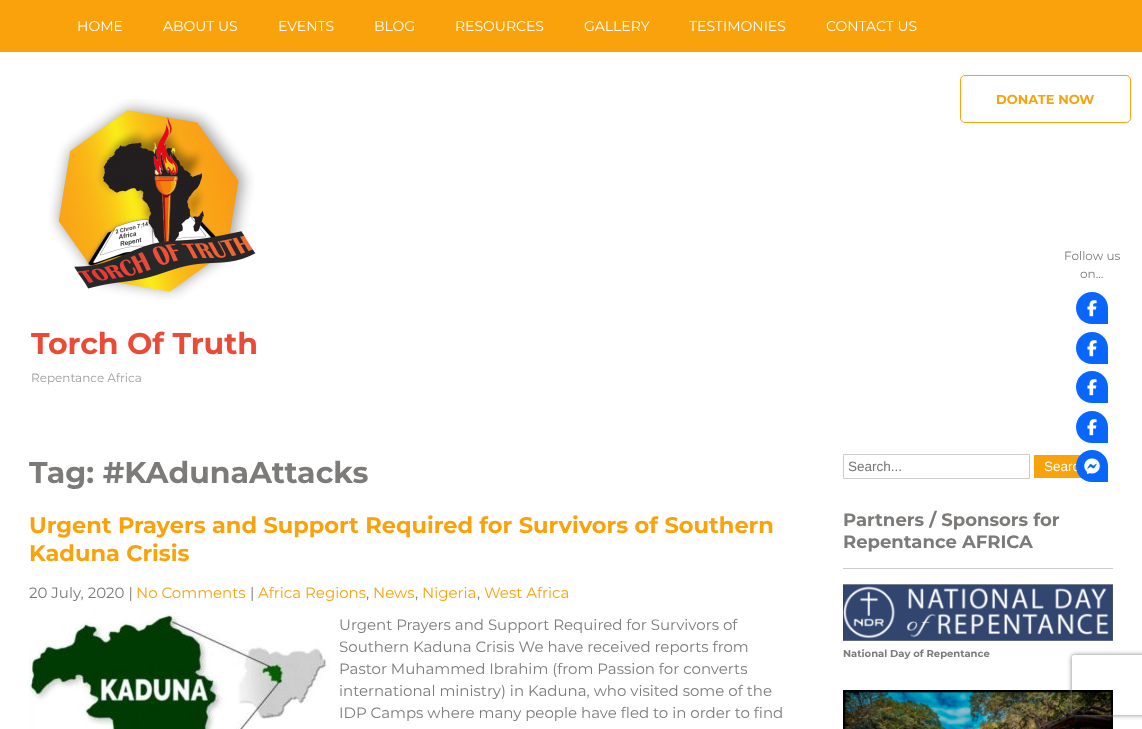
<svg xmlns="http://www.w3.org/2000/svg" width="1142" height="729">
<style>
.a{font:14px Montserrat;fill:#fff}
.b{font:bold 13px Montserrat;fill:#f9a20c}
.c{font:bold 30px Montserrat;fill:#e94b37}
.d{font:12px Montserrat;fill:#9d9d9d}
.e{font:12px Montserrat;fill:#7c7b79}
.f{font:bold 30px Montserrat;fill:#7c7b79}
.g{font:bold 22.5px Montserrat;fill:#f9a20c}
.h{font:15px Montserrat;fill:#7c7b79}
.i{font:15px Montserrat;fill:#f9a20c}
.j{font:13.5px Liberation Sans;fill:#757575}
.k{font:13.5px Liberation Sans;fill:#fff}
.l{font:bold 18px Montserrat;fill:#7c7b79}
.m{font:bold 10px Montserrat;fill:#7c7b79}
</style>
<defs>
<clipPath id="clip1"><path d="M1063 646h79v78h-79zm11 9h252c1 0 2 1 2 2v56c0 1-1 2-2 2h-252c-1 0-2-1-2-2v-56c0-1 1-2 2-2z" clip-rule="evenodd"/></clipPath>
</defs>
<rect width="100%" height="100%" fill="#fff"/>
<path fill="#f9a20c" d="M0 0h1142v52H0z"/>
<rect fill="none" stroke="#f9a20c" x="960.5" y="75.5" width="170" height="47" rx="4.5"/>
<image href="1.png" x="49" y="99" width="207" height="201"/>
<path fill="#0866ff" d="M1092 292c9 0 16 7 16 16v16h-16c-9 0-16-7-16-16c0-9 7-16 16-16z"/>
<image href="2.png" x="1087" y="300" width="10" height="17"/>
<path fill="#0866ff" d="M1092 332c9 0 16 7 16 16v16h-16c-9 0-16-7-16-16c0-9 7-16 16-16z"/>
<image href="2.png" x="1087" y="340" width="10" height="17"/>
<path fill="#0866ff" d="M1092 371c9 0 16 7 16 16v16h-16c-9 0-16-7-16-16c0-9 7-16 16-16z"/>
<image href="2.png" x="1087" y="379" width="10" height="17"/>
<path fill="#0866ff" d="M1092 411c9 0 16 7 16 16v16h-16c-9 0-16-7-16-16c0-9 7-16 16-16z"/>
<image href="2.png" x="1087" y="419" width="10" height="17"/>
<image href="4.png" x="29" y="608" width="300" height="121"/>
<path fill="none" stroke="#ccc" d="M843.5 454.5h186v24H843.5z"/>
<path fill="#f9a20c" d="M1034 455h48v23H1034z"/>
<path fill="#ccc" d="M843 568h270v1H843z"/>
<image href="5.png" x="843" y="584" width="270" height="57"/>
<image href="6.png" x="843" y="690" width="270" height="39"/>
<g clip-path="url(#clip1)">
<rect fill="#808080" filter="blur(2.5px)" x="1072" y="655" width="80" height="60" rx="2"/>
</g>
<text class="a" x="77" y="31">HOME</text>
<text class="a" x="163" y="31">ABOUT US</text>
<text class="a" x="278" y="31">EVENTS</text>
<text class="a" x="374" y="31">BLOG</text>
<text class="a" x="455" y="31">RESOURCES</text>
<text class="a" x="584" y="31">GALLERY</text>
<text class="a" x="689" y="31">TESTIMONIES</text>
<text class="a" x="826" y="31">CONTACT US</text>
<text class="b" x="996" y="104">DONATE NOW</text>
<text class="c" x="31" y="354">Torch Of Truth</text>
<text class="d" x="31" y="382">Repentance Africa</text>
<text class="e" x="1064" y="260">Follow us</text>
<text class="e" x="1080" y="278">on...</text>
<text class="f" x="29" y="483">Tag: #KAdunaAttacks</text>
<text class="g" x="29" y="533">Urgent Prayers and Support Required for Survivors of Southern</text>
<text class="g" x="29" y="561">Kaduna Crisis</text>
<text class="h" x="29" y="598">20 July, 2020 |</text>
<text class="i" x="136" y="598">No Comments</text>
<text class="h" x="250" y="598">|</text>
<text class="i" x="258" y="598">Africa Regions</text>
<text class="h" x="366" y="598">,</text>
<text class="i" x="373" y="598">News</text>
<text class="h" x="415" y="598">,</text>
<text class="i" x="422" y="598">Nigeria</text>
<text class="h" x="477" y="598">,</text>
<text class="i" x="484" y="598">West Africa</text>
<text class="h" x="339" y="630">Urgent Prayers and Support Required for Survivors of</text>
<text class="h" x="339" y="652">Southern Kaduna Crisis We have received reports from</text>
<text class="h" x="339" y="674">Pastor Muhammed Ibrahim (from Passion for converts</text>
<text class="h" x="339" y="696">international ministry) in Kaduna, who visited some of the</text>
<text class="h" x="339" y="718">IDP Camps where many people have fled to in order to find</text>
<text class="j" x="848" y="471">Search...</text>
<text class="k" x="1044" y="471">Searc</text>
<path fill="#0866ff" d="M1092 450c9 0 16 7 16 16v16h-16c-9 0-16-7-16-16c0-9 7-16 16-16z"/>
<image href="3.png" x="1084" y="458" width="16" height="16"/>
<text class="l" x="843" y="526">Partners / Sponsors for</text>
<text class="l" x="843" y="548">Repentance AFRICA</text>
<text class="m" x="843" y="657">National Day of Repentance</text>
</svg>
